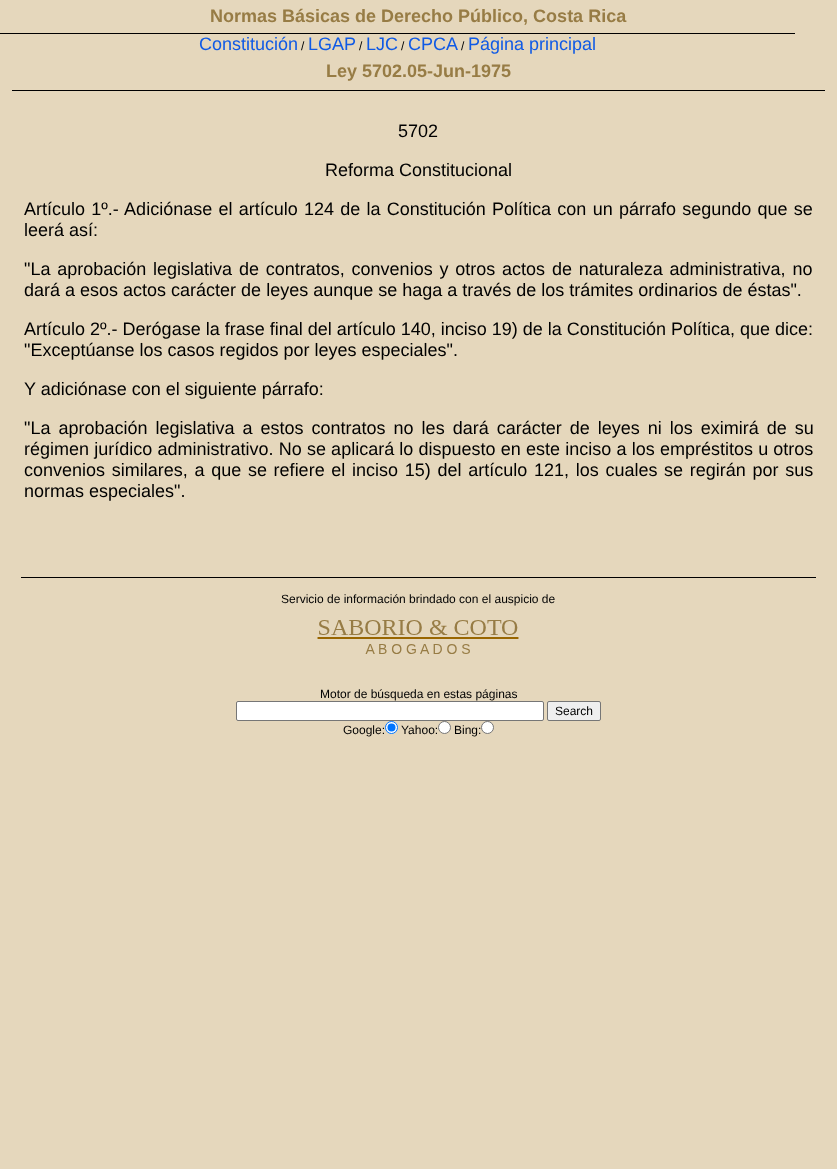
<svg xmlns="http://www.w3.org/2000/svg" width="837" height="1169">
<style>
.a{font:bold 18px Liberation Sans;fill:#977c45}
.b{font:18px Liberation Sans;fill:#105ae5}
.c{font:12px Liberation Sans;fill:#000}
.d{font:18px Liberation Sans;fill:#000}
</style>
<rect width="100%" height="100%" fill="#e5d7bc"/>
<path fill="#000" d="M0 33h795v1H0z"/>
<path fill="#000" d="M12 90h813v1H12z"/>
<path fill="#000" d="M21 577h795v1H21z"/>
<image href="1.png" x="317" y="620" width="202" height="34"/>
<rect fill="#fff" stroke="#767676" x="236.5" y="701.5" width="307" height="19" rx="1.5"/>
<rect fill="#efefef" stroke="#767676" x="547.5" y="701.5" width="53" height="19" rx="1.5"/>
<circle fill="#fff" stroke="#0075ff" cx="391.5" cy="727.5" r="6"/>
<circle fill="#0075ff" cx="391.5" cy="727.5" r="4"/>
<circle fill="#fff" stroke="#767676" cx="444.5" cy="727.5" r="6"/>
<circle fill="#fff" stroke="#767676" cx="487.5" cy="727.5" r="6"/>
<text class="a" x="210" y="22">Normas Básicas de Derecho Público, Costa Rica</text>
<text class="b" x="199" y="50">Constitución</text>
<text class="c" x="301" y="50">/</text>
<text class="b" x="308" y="50">LGAP</text>
<text class="c" x="359" y="50">/</text>
<text class="b" x="366" y="50">LJC</text>
<text class="c" x="401" y="50">/</text>
<text class="b" x="408" y="50">CPCA</text>
<text class="c" x="461" y="50">/</text>
<text class="b" x="468" y="50">Página principal</text>
<text class="a" x="326" y="77">Ley 5702.05-Jun-1975</text>
<text class="d" x="398" y="137">5702</text>
<text class="d" x="325" y="176">Reforma Constitucional</text>
<text class="d" x="24" y="215" word-spacing="1.25">Artículo 1º.- Adiciónase el artículo 124 de la Constitución Política con un párrafo segundo que se</text>
<text class="d" x="24" y="236">leerá así:</text>
<text class="d" x="24" y="275" word-spacing="1.8">"La aprobación legislativa de contratos, convenios y otros actos de naturaleza administrativa, no</text>
<text class="d" x="24" y="296">dará a esos actos carácter de leyes aunque se haga a través de los trámites ordinarios de éstas".</text>
<text class="d" x="24" y="335">Artículo 2º.- Derógase la frase final del artículo 140, inciso 19) de la Constitución Política, que dice:</text>
<text class="d" x="24" y="356">"Exceptúanse los casos regidos por leyes especiales".</text>
<text class="d" x="24" y="395">Y adiciónase con el siguiente párrafo:</text>
<text class="d" x="24" y="434" word-spacing="3">"La aprobación legislativa a estos contratos no les dará carácter de leyes ni los eximirá de su</text>
<text class="d" x="24" y="455" word-spacing="0.2">régimen jurídico administrativo. No se aplicará lo dispuesto en este inciso a los empréstitos u otros</text>
<text class="d" x="24" y="476" word-spacing="1.7">convenios similares, a que se refiere el inciso 15) del artículo 121, los cuales se regirán por sus</text>
<text class="d" x="24" y="497">normas especiales".</text>
<text class="c" x="281" y="603">Servicio de información brindado con el auspicio de</text>
<text class="c" x="320" y="698">Motor de búsqueda en estas páginas</text>
<text class="c" x="555" y="715">Search</text>
<text class="c" x="343" y="734">Google:</text>
<text class="c" x="401" y="734">Yahoo:</text>
<text class="c" x="454" y="734">Bing:</text>
</svg>
